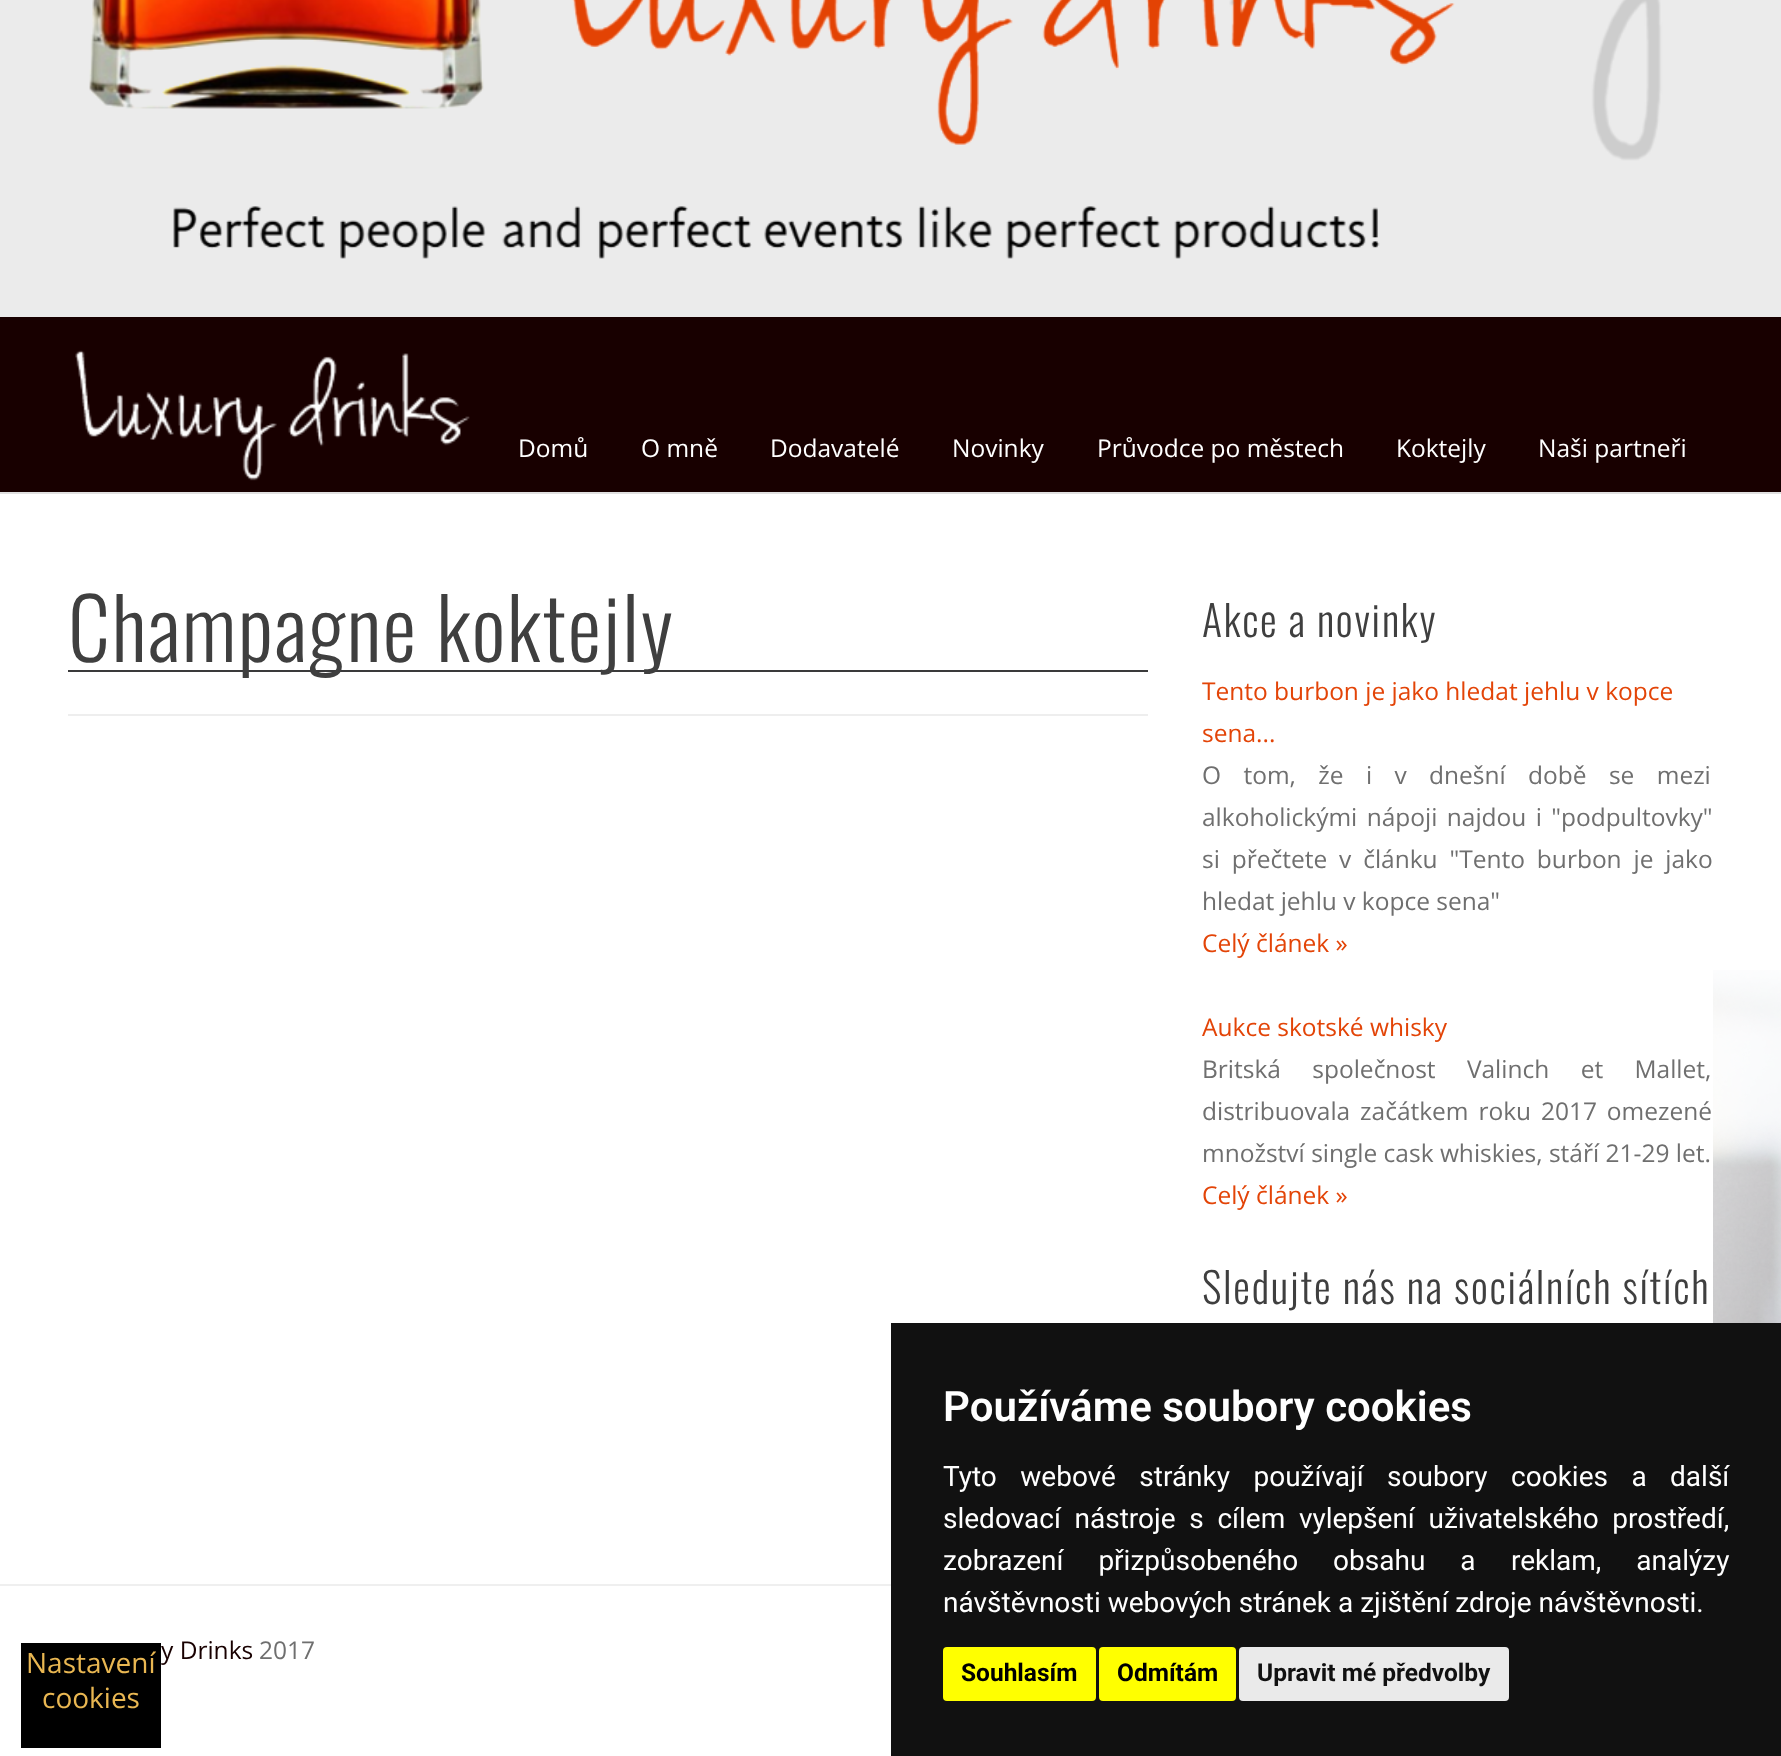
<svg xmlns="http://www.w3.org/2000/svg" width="1781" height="1756">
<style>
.a{font:24.5px Open Sans;fill:#fff}
.b{font:300 84px Oswald;letter-spacing:1.75px;fill:#3f3f3f}
.c{font:300 42px Oswald;letter-spacing:1.75px;fill:#3f3f3f}
.d{font:24.5px Open Sans;fill:#e34407}
.e{font:24.5px Open Sans;fill:#6f6f6f}
.f{font:24.5px Open Sans;fill:#180000}
.g{font:28px Open Sans;fill:#e9b752}
.h{font:600 42px Roboto;fill:#fff}
.i{font:28px Roboto;fill:#fff}
.j{font:bold 24.5px Roboto;fill:#000}
.k{font:bold 24.5px Roboto;fill:#111}
</style>
<rect width="100%" height="100%" fill="#fff"/>
<image href="1.png" x="0" y="0" width="1781" height="317"/>
<path fill="#180000" d="M0 317h1781v175H0z"/>
<path fill="#e0e0e0" d="M0 492h1781v2H0z"/>
<image href="2.png" x="75" y="350" width="395" height="131"/>
<image href="3.png" x="1713" y="970" width="68" height="353"/>
<path fill="#eee" d="M68 714h1080v2H68z"/>
<path fill="#3a3a3b" d="M68 670h1080v2H68z"/>
<path fill="#efefef" d="M0 1584h891v2H0z"/>
<path fill="#111" d="M891 1323h890v433H891z"/>
<rect fill="#ff0" x="943" y="1647" width="153" height="54" rx="4"/>
<rect fill="#ff0" x="1099" y="1647" width="137" height="54" rx="4"/>
<rect fill="#eaeaea" x="1239" y="1647" width="270" height="54" rx="4"/>
<text class="a" x="518" y="457">Domů</text>
<text class="a" x="641" y="457">O mně</text>
<text class="a" x="770" y="457">Dodavatelé</text>
<text class="a" x="952" y="457">Novinky</text>
<text class="a" x="1097" y="457">Průvodce po městech</text>
<text class="a" x="1396" y="457">Koktejly</text>
<text class="a" x="1538" y="457">Naši partneři</text>
<text class="b" x="68" y="662">Champagne koktejly</text>
<text class="c" x="1202" y="637">Akce a novinky</text>
<text class="d" x="1202" y="700">Tento burbon je jako hledat jehlu v kopce</text>
<text class="d" x="1202" y="742">sena...</text>
<text class="e" x="1202" y="784" word-spacing="16">O tom, že i v dnešní době se mezi</text>
<text class="e" x="1202" y="826" word-spacing="3">alkoholickými nápoji najdou i "podpultovky"</text>
<text class="e" x="1202" y="868" word-spacing="5.5">si přečtete v článku "Tento burbon je jako</text>
<text class="e" x="1202" y="910">hledat jehlu v kopce sena"</text>
<text class="d" x="1202" y="952">Celý článek »</text>
<text class="d" x="1202" y="1036">Aukce skotské whisky</text>
<text class="e" x="1202" y="1078" word-spacing="25">Britská společnost Valinch et Mallet,</text>
<text class="e" x="1202" y="1120" word-spacing="3.5">distribuovala začátkem roku 2017 omezené</text>
<text class="e" x="1202" y="1162">množství single cask whiskies, stáří 21-29 let.</text>
<text class="d" x="1202" y="1204">Celý článek »</text>
<text class="c" x="1202" y="1304">Sledujte nás na sociálních sítích</text>
<text class="f" x="161" y="1659">y Drinks</text>
<path fill="#000" d="M21 1643h140v105H21z"/>
<text class="g" x="42" y="1708">cookies</text>
<text class="g" x="26" y="1673">Nastavení</text>
<text class="e" x="259" y="1659">2017</text>
<text class="h" x="943" y="1421">Používáme soubory cookies</text>
<text class="i" x="943" y="1486" word-spacing="16.5">Tyto webové stránky používají soubory cookies a další</text>
<text class="i" x="943" y="1528" word-spacing="6.75">sledovací nástroje s cílem vylepšení uživatelského prostředí,</text>
<text class="i" x="943" y="1570" word-spacing="28">zobrazení přizpůsobeného obsahu a</text>
<text class="i" x="1511" y="1570" word-spacing="28">reklam, analýzy</text>
<text class="i" x="943" y="1612">návštěvnosti webových stránek a zjištění zdroje návštěvnosti.</text>
<text class="j" x="961" y="1681">Souhlasím</text>
<text class="j" x="1117" y="1681">Odmítám</text>
<text class="k" x="1257" y="1681">Upravit mé předvolby</text>
</svg>
